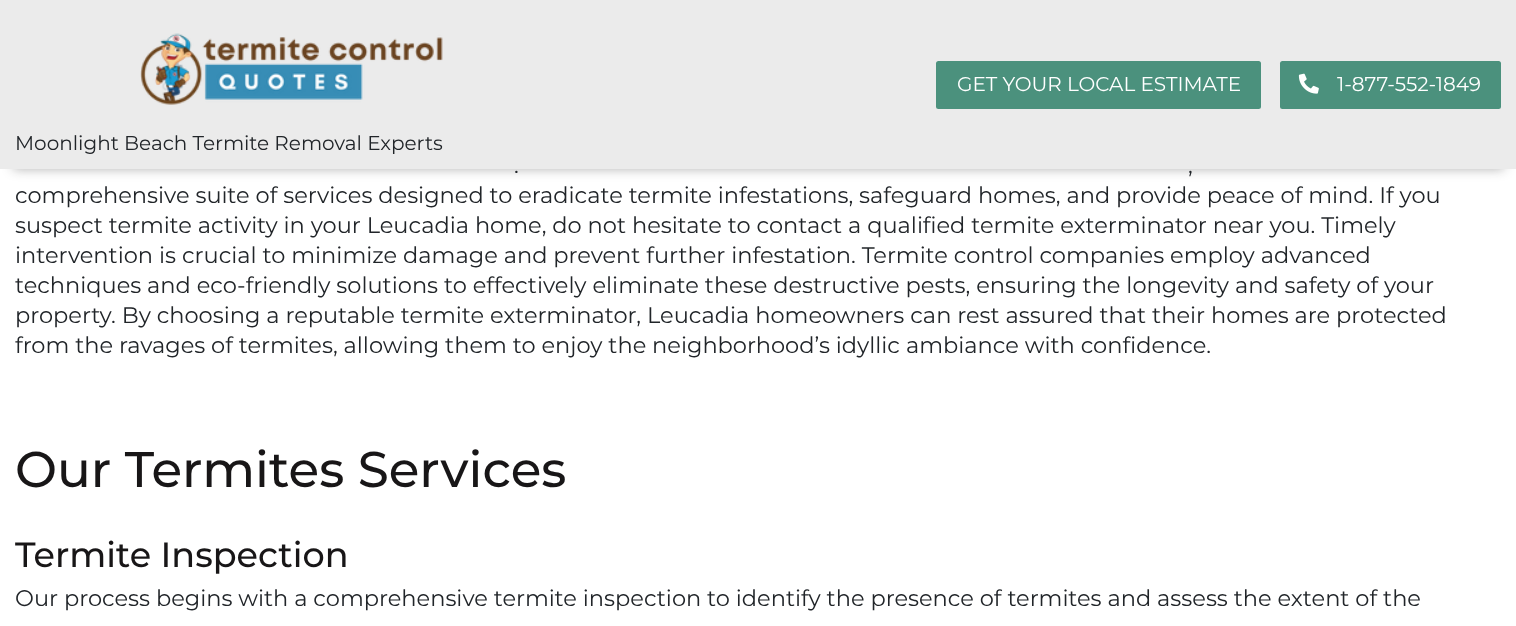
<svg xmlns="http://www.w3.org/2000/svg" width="1516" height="626">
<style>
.a{font:20px Montserrat;fill:#fff}
.b{font:20px Montserrat;fill:#212529}
.c{font:22.5px Montserrat;fill:#212529}
.d{font:500 50px Montserrat;fill:#181617}
.e{font:500 35px Montserrat;fill:#181617}
</style>
<rect width="100%" height="100%" fill="#fff"/>
<path fill="#11111154" filter="blur(6px)" d="M13 25h1491v144H13z"/>
<path fill="#ebebeb" d="M0 0h1516v169H0z"/>
<rect fill="#4b917d" x="936" y="61" width="325" height="48" rx="2.5"/>
<rect fill="#4b917d" x="1280" y="61" width="221" height="48" rx="2.5"/>
<image href="1.png" x="1298" y="73" width="21" height="21"/>
<image href="2.png" x="140" y="33" width="303" height="72"/>
<text class="a" x="957" y="91">GET YOUR LOCAL ESTIMATE</text>
<text class="a" x="1337" y="91">1-877-552-1849</text>
<text class="b" x="15" y="150">Moonlight Beach Termite Removal Experts</text>
<text class="c" x="514" y="173">.</text>
<text class="c" x="1188" y="173">,</text>
<text class="c" x="15" y="203">comprehensive suite of services designed to eradicate termite infestations, safeguard homes, and provide peace of mind. If you</text>
<text class="c" x="15" y="233">suspect termite activity in your Leucadia home, do not hesitate to contact a qualified termite exterminator near you. Timely</text>
<text class="c" x="15" y="263">intervention is crucial to minimize damage and prevent further infestation. Termite control companies employ advanced</text>
<text class="c" x="15" y="293">techniques and eco-friendly solutions to effectively eliminate these destructive pests, ensuring the longevity and safety of your</text>
<text class="c" x="15" y="323">property. By choosing a reputable termite exterminator, Leucadia homeowners can rest assured that their homes are protected</text>
<text class="c" x="15" y="353">from the ravages of termites, allowing them to enjoy the neighborhood’s idyllic ambiance with confidence.</text>
<text class="d" x="15" y="487">Our Termites Services</text>
<text class="e" x="15" y="567">Termite Inspection</text>
<text class="c" x="15" y="606">Our process begins with a comprehensive termite inspection to identify the presence of termites and assess the extent of the</text>
</svg>
